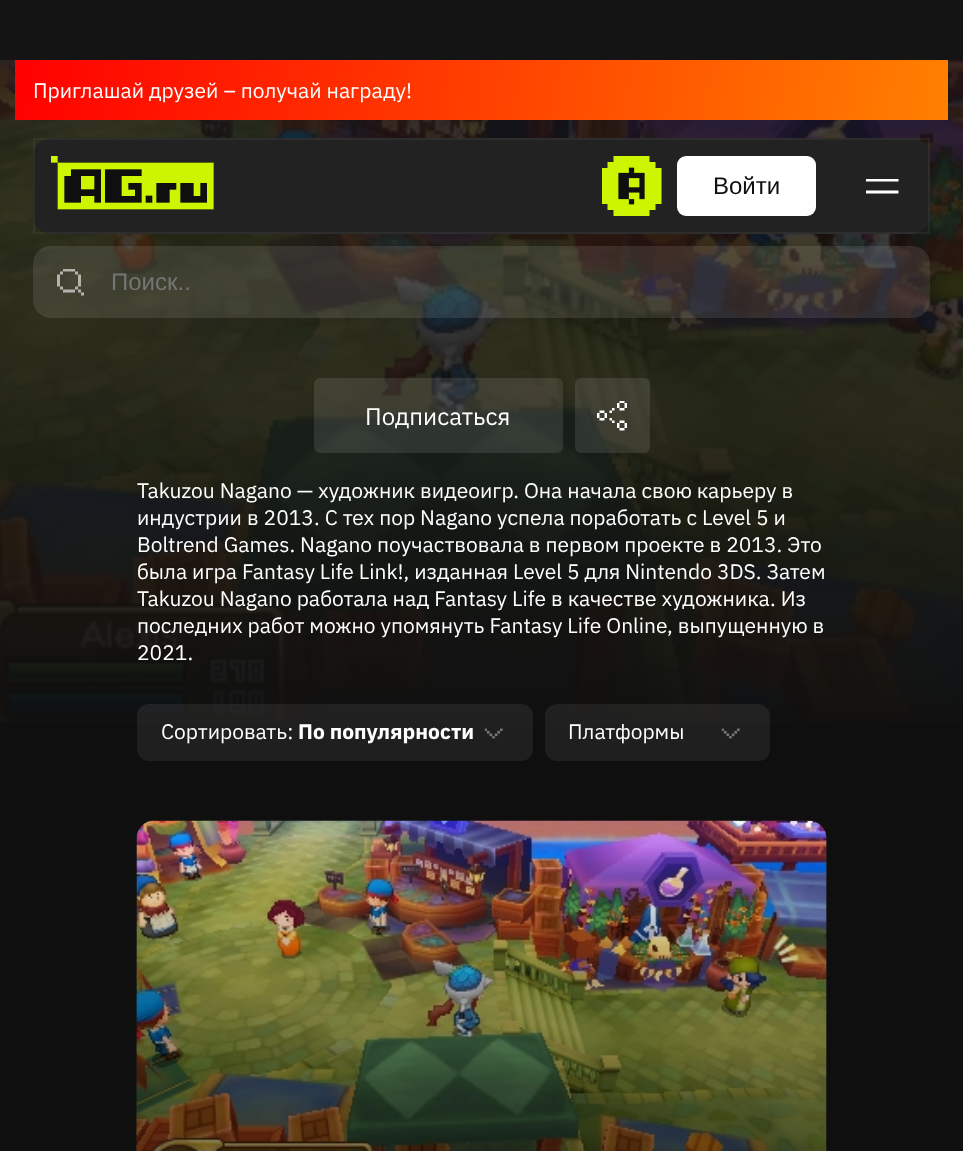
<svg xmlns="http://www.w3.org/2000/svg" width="963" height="1151">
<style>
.a{font:21px IBM Plex Sans;fill:#fff}
.b{font:24px Liberation Sans;fill:#0f0f0f}
.c{font:24px Liberation Sans;fill:#757575}
.d{font:24px IBM Plex Sans;fill:#fff}
.e{font:bold 21px IBM Plex Sans;fill:#fff}
</style>
<defs>
<linearGradient id="g1" gradientUnits="userSpaceOnUse" x1="20" y1="25" x2="943" y2="155"><stop offset="0" stop-color="#f00"/><stop offset="1" stop-color="#ff8000"/></linearGradient>
<clipPath id="clip1"><path d="M866 179h33v15H866z"/></clipPath>
<linearGradient id="g2" gradientUnits="userSpaceOnUse" x1="482" y1="821" x2="482" y2="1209"><stop offset="0" stop-color="#000" stop-opacity="0"/><stop offset="1" stop-color="#000" stop-opacity="0.6"/></linearGradient>
</defs>
<rect width="100%" height="100%" fill="#0f0f0f"/>
<path fill="#141414" d="M0 0h963v60H0z"/>
<image href="1.png" x="0" y="60" width="963" height="663"/>
<path fill="url(#g1)" d="M15 60h933v60H15z"/>
<rect fill="#222" x="33" y="138" width="897" height="96" rx="18"/>
<path fill="none" stroke="#ffffff0d" stroke-width="2" d="M34 139h895v94H34z"/>
<image href="2.png" x="51" y="156" width="163" height="54"/>
<image href="3.png" x="602" y="156" width="60" height="60"/>
<rect fill="#fff" x="677" y="156" width="139" height="60" rx="9"/>
<g clip-path="url(#clip1)">
<path fill="#fff" fill-rule="evenodd" d="M898.5 181.5v-3h-33v3zm0 12v-3h-33v3z"/>
</g>
<rect fill="#feffff1a" x="33" y="246" width="897" height="72" rx="18"/>
<image href="4.png" x="57" y="269" width="27" height="27"/>
<rect fill="#ffffff1a" x="314" y="378" width="249" height="75" rx="6"/>
<rect fill="#ffffff1a" x="575" y="378" width="75" height="75" rx="6"/>
<image href="5.png" x="597" y="401" width="30" height="30"/>
<rect fill="#ffffff12" x="137" y="704" width="396" height="57" rx="12"/>
<image href="6.png" x="484" y="728" width="19" height="11"/>
<rect fill="#ffffff12" x="545" y="704" width="225" height="57" rx="12"/>
<image href="6.png" x="721" y="728" width="19" height="11"/>
<rect fill="#202020" x="137" y="821" width="690" height="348" rx="18"/>
<image href="7.png" x="136" y="820" width="691" height="331"/>
<path fill="url(#g2)" d="M137 835h690v316H137z"/>
<text class="a" x="33" y="98">Приглашай друзей – получай награду!</text>
<text class="b" x="713" y="194">Войти</text>
<text class="c" x="111" y="290">Поиск..</text>
<text class="d" x="365" y="425">Подписаться</text>
<text class="a" x="137" y="498">Takuzou Nagano — художник видеоигр. Она начала свою карьеру в</text>
<text class="a" x="137" y="525">индустрии в 2013. С тех пор Nagano успела поработать с Level 5 и</text>
<text class="a" x="137" y="552">Boltrend Games. Nagano поучаствовала в первом проекте в 2013. Это</text>
<text class="a" x="137" y="579">была игра Fantasy Life Link!, изданная Level 5 для Nintendo 3DS. Затем</text>
<text class="a" x="137" y="606">Takuzou Nagano работала над Fantasy Life в качестве художника. Из</text>
<text class="a" x="137" y="633">последних работ можно упомянуть Fantasy Life Online, выпущенную в</text>
<text class="a" x="137" y="660">2021.</text>
<text class="a" x="161" y="739">Сортировать:</text>
<text class="e" x="298" y="739">По популярности</text>
<text class="a" x="568" y="739">Платформы</text>
</svg>
